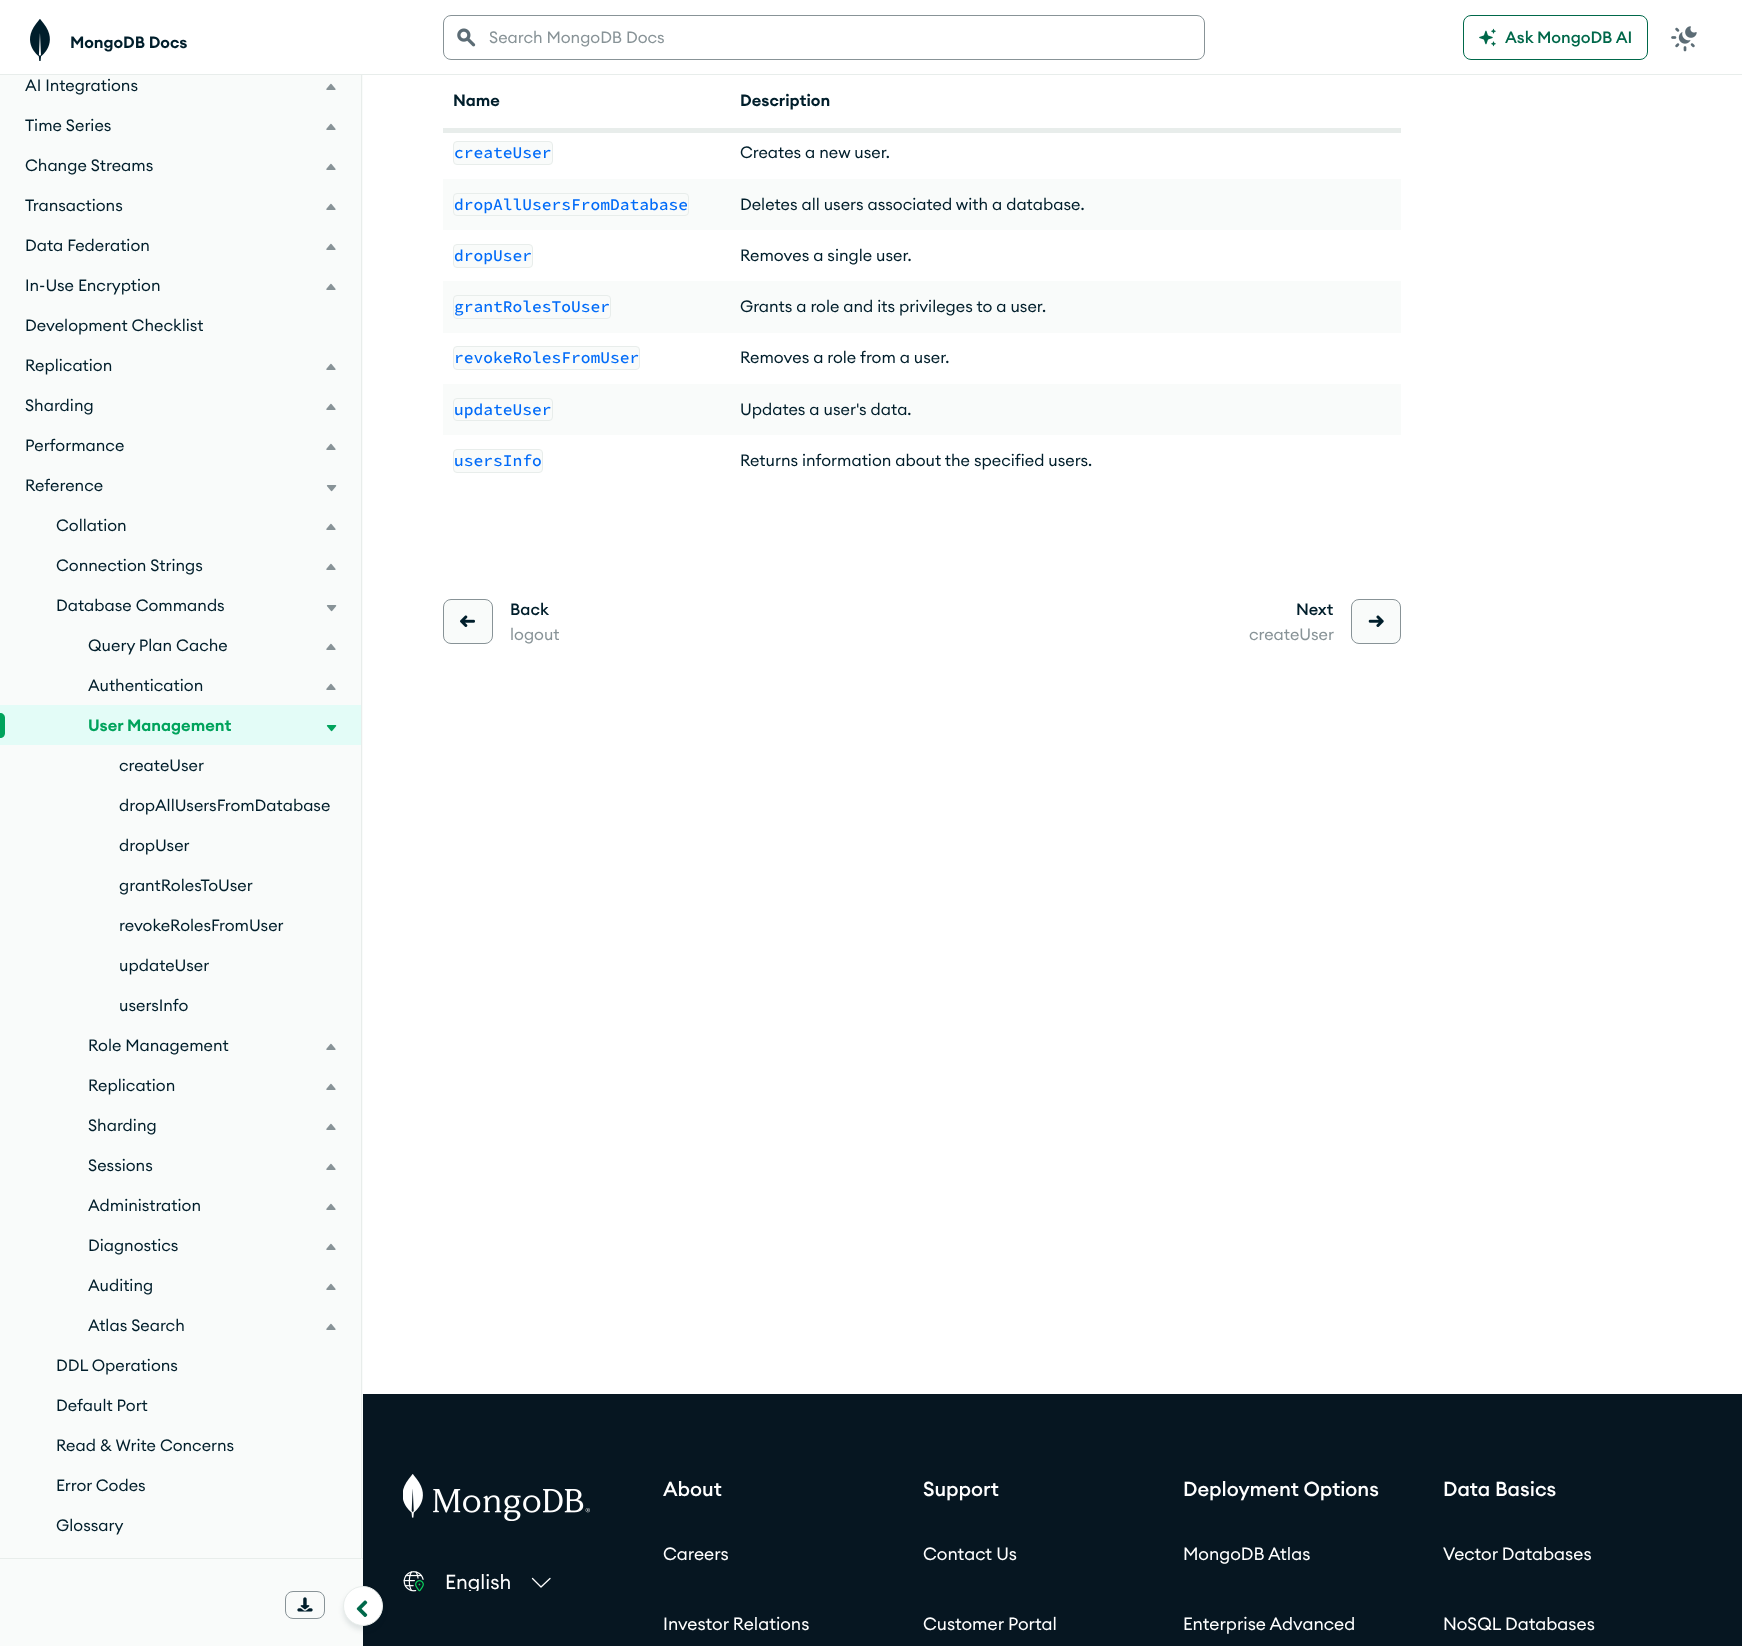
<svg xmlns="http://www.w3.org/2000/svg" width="1742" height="1646">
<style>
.a{font:600 16.25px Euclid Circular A;fill:#001e2b}
.b{font:16.25px Euclid Circular A;fill:#001e2b}
.c{font:600 16.25px Euclid Circular A;fill:#00a35c}
.d{font:16.25px Euclid Circular A;fill:#889397}
.e{font:500 16.25px Euclid Circular A;fill:#00684a}
.f{font:500 16.25px Source Code Pro;fill:#016bf8}
.g{font:500 16.25px Euclid Circular A;fill:#001e2b}
.h{font:20px Euclid Circular A;fill:#fff}
.i{font:500 20px Euclid Circular A;fill:#fff}
.j{font:17.5px Euclid Circular A;fill:#fff}
</style>
<defs>
<clipPath id="clip1"><path d="M425 1571h86v20H425z"/></clipPath>
</defs>
<rect width="100%" height="100%" fill="#fff"/>
<path fill="#f9fbfa" d="M0 75h363v1571H0z"/>
<image href="1.png" x="30" y="19" width="20" height="42"/>
<path fill="#e8edeb" d="M0 1558h363v1H0z"/>
<path fill="#e8edeb" d="M361 75h1v1483H361z"/>
<image href="2.png" x="326" y="83" width="10" height="7"/>
<image href="2.png" x="326" y="123" width="10" height="7"/>
<image href="2.png" x="326" y="163" width="10" height="7"/>
<image href="2.png" x="326" y="203" width="10" height="7"/>
<image href="2.png" x="326" y="243" width="10" height="7"/>
<image href="2.png" x="326" y="283" width="10" height="7"/>
<image href="2.png" x="326" y="363" width="10" height="7"/>
<image href="2.png" x="326" y="403" width="10" height="7"/>
<image href="2.png" x="326" y="443" width="10" height="7"/>
<image href="3.png" x="326" y="485" width="11" height="7"/>
<image href="2.png" x="326" y="523" width="10" height="7"/>
<image href="2.png" x="326" y="563" width="10" height="7"/>
<image href="3.png" x="326" y="605" width="11" height="7"/>
<image href="2.png" x="326" y="643" width="10" height="7"/>
<image href="2.png" x="326" y="683" width="10" height="7"/>
<path fill="#e3fcf7" d="M0 705h361v40H0z"/>
<path fill="#00a35c" d="M0 713c3 0 5 2 5 5v15c0 3-2 5-5 5z"/>
<image href="4.png" x="326" y="725" width="11" height="7"/>
<image href="2.png" x="326" y="1043" width="10" height="7"/>
<image href="2.png" x="326" y="1083" width="10" height="7"/>
<image href="2.png" x="326" y="1123" width="10" height="7"/>
<image href="2.png" x="326" y="1163" width="10" height="7"/>
<image href="2.png" x="326" y="1203" width="10" height="7"/>
<image href="2.png" x="326" y="1243" width="10" height="7"/>
<image href="2.png" x="326" y="1283" width="10" height="7"/>
<image href="2.png" x="326" y="1323" width="10" height="7"/>
<rect fill="none" stroke="#889397" x="285.5" y="1591.5" width="39" height="27" rx="7.5"/>
<image href="5.png" x="297" y="1597" width="16" height="15"/>
<path fill="#061621" d="M363 1394h1379v252H363z"/>
<rect fill="#001e2b1a" filter="blur(2.5px)" x="343" y="1590" width="40" height="40" rx="20"/>
<circle fill="#fff" stroke="#e8edeb" cx="363" cy="1606" r="19.5"/>
<image href="6.png" x="356" y="1600" width="12" height="17"/>
<path fill="#e8edeb" d="M0 74h1742v1H0z"/>
<rect fill="none" stroke="#889397" x="443.5" y="15.5" width="761" height="44" rx="7.5"/>
<image href="7.png" x="457" y="28" width="19" height="19"/>
<rect fill="none" stroke="#00684a" x="1463.5" y="15.5" width="184" height="44" rx="7.5"/>
<image href="8.png" x="1479" y="28" width="17" height="19"/>
<image href="9.png" x="1671" y="26" width="26" height="26"/>
<path fill="#e8edeb" d="M443 128h958v5H443z"/>
<rect fill="#f9fbfa" stroke="#e8edeb" x="453.5" y="141.5" width="99" height="23" rx="3.5"/>
<path fill="#f9fbfa" d="M443 179h958v51H443z"/>
<rect fill="none" stroke="#e8edeb" x="453.5" y="193.5" width="235" height="22" rx="3.5"/>
<rect fill="#f9fbfa" stroke="#e8edeb" x="453.5" y="244.5" width="79" height="23" rx="3.5"/>
<path fill="#f9fbfa" d="M443 281h958v52H443z"/>
<rect fill="none" stroke="#e8edeb" x="453.5" y="295.5" width="157" height="23" rx="3.5"/>
<rect fill="#f9fbfa" stroke="#e8edeb" x="453.5" y="346.5" width="186" height="23" rx="3.5"/>
<path fill="#f9fbfa" d="M443 384h958v51H443z"/>
<rect fill="none" stroke="#e8edeb" x="453.5" y="398.5" width="99" height="22" rx="3.5"/>
<rect fill="#f9fbfa" stroke="#e8edeb" x="453.5" y="449.5" width="89" height="23" rx="3.5"/>
<rect fill="#f9fbfa" stroke="#889397" x="443.5" y="599.5" width="49" height="44" rx="7.5"/>
<image href="10.png" x="460" y="615" width="15" height="12"/>
<rect fill="#f9fbfa" stroke="#889397" x="1351.5" y="599.5" width="49" height="44" rx="7.5"/>
<image href="11.png" x="1368" y="615" width="16" height="12"/>
<image href="12.png" x="403" y="1474" width="187" height="47"/>
<image href="13.png" x="403" y="1571" width="21" height="21"/>
<path fill="none" stroke="#fff" stroke-width="1.3" stroke-linecap="round" stroke-linejoin="round" d="M532.5 1578.5l8.5 8.5l9-8.5"/>
<text class="a" x="70" y="48">MongoDB Docs</text>
<text class="b" x="25" y="91">AI Integrations</text>
<text class="b" x="25" y="131">Time Series</text>
<text class="b" x="25" y="171">Change Streams</text>
<text class="b" x="25" y="211">Transactions</text>
<text class="b" x="25" y="251">Data Federation</text>
<text class="b" x="25" y="291">In-Use Encryption</text>
<text class="b" x="25" y="331">Development Checklist</text>
<text class="b" x="25" y="371">Replication</text>
<text class="b" x="25" y="411">Sharding</text>
<text class="b" x="25" y="451">Performance</text>
<text class="b" x="25" y="491">Reference</text>
<text class="b" x="56" y="531">Collation</text>
<text class="b" x="56" y="571">Connection Strings</text>
<text class="b" x="56" y="611">Database Commands</text>
<text class="b" x="88" y="651">Query Plan Cache</text>
<text class="b" x="88" y="691">Authentication</text>
<text class="c" x="88" y="731">User Management</text>
<text class="b" x="119" y="771">createUser</text>
<text class="b" x="119" y="811">dropAllUsersFromDatabase</text>
<text class="b" x="119" y="851">dropUser</text>
<text class="b" x="119" y="891">grantRolesToUser</text>
<text class="b" x="119" y="931">revokeRolesFromUser</text>
<text class="b" x="119" y="971">updateUser</text>
<text class="b" x="119" y="1011">usersInfo</text>
<text class="b" x="88" y="1051">Role Management</text>
<text class="b" x="88" y="1091">Replication</text>
<text class="b" x="88" y="1131">Sharding</text>
<text class="b" x="88" y="1171">Sessions</text>
<text class="b" x="88" y="1211">Administration</text>
<text class="b" x="88" y="1251">Diagnostics</text>
<text class="b" x="88" y="1291">Auditing</text>
<text class="b" x="88" y="1331">Atlas Search</text>
<text class="b" x="56" y="1371">DDL Operations</text>
<text class="b" x="56" y="1411">Default Port</text>
<text class="b" x="56" y="1451">Read &amp; Write Concerns</text>
<text class="b" x="56" y="1491">Error Codes</text>
<text class="b" x="56" y="1531">Glossary</text>
<text class="d" x="489" y="43">Search MongoDB Docs</text>
<text class="e" x="1505" y="43">Ask MongoDB AI</text>
<text class="a" x="453" y="106">Name</text>
<text class="a" x="740" y="106">Description</text>
<text class="f" x="454" y="158">createUser</text>
<text class="b" x="740" y="158">Creates a new user.</text>
<text class="f" x="454" y="210">dropAllUsersFromDatabase</text>
<text class="b" x="740" y="210">Deletes all users associated with a database.</text>
<text class="f" x="454" y="261">dropUser</text>
<text class="b" x="740" y="261">Removes a single user.</text>
<text class="f" x="454" y="312">grantRolesToUser</text>
<text class="b" x="740" y="312">Grants a role and its privileges to a user.</text>
<text class="f" x="454" y="363">revokeRolesFromUser</text>
<text class="b" x="740" y="363">Removes a role from a user.</text>
<text class="f" x="454" y="415">updateUser</text>
<text class="b" x="740" y="415">Updates a user's data.</text>
<text class="f" x="454" y="466">usersInfo</text>
<text class="b" x="740" y="466">Returns information about the specified users.</text>
<text class="g" x="510" y="615">Back</text>
<text class="d" x="510" y="640">logout</text>
<text class="g" x="1296" y="615">Next</text>
<text class="d" x="1249" y="640">createUser</text>
<g clip-path="url(#clip1)">
<text class="h" x="445" y="1589">English</text>
</g>
<text class="i" x="663" y="1496">About</text>
<text class="j" x="663" y="1560">Careers</text>
<text class="j" x="663" y="1630">Investor Relations</text>
<text class="i" x="923" y="1496">Support</text>
<text class="j" x="923" y="1560">Contact Us</text>
<text class="j" x="923" y="1630">Customer Portal</text>
<text class="i" x="1183" y="1496">Deployment Options</text>
<text class="j" x="1183" y="1560">MongoDB Atlas</text>
<text class="j" x="1183" y="1630">Enterprise Advanced</text>
<text class="i" x="1443" y="1496">Data Basics</text>
<text class="j" x="1443" y="1560">Vector Databases</text>
<text class="j" x="1443" y="1630">NoSQL Databases</text>
</svg>
